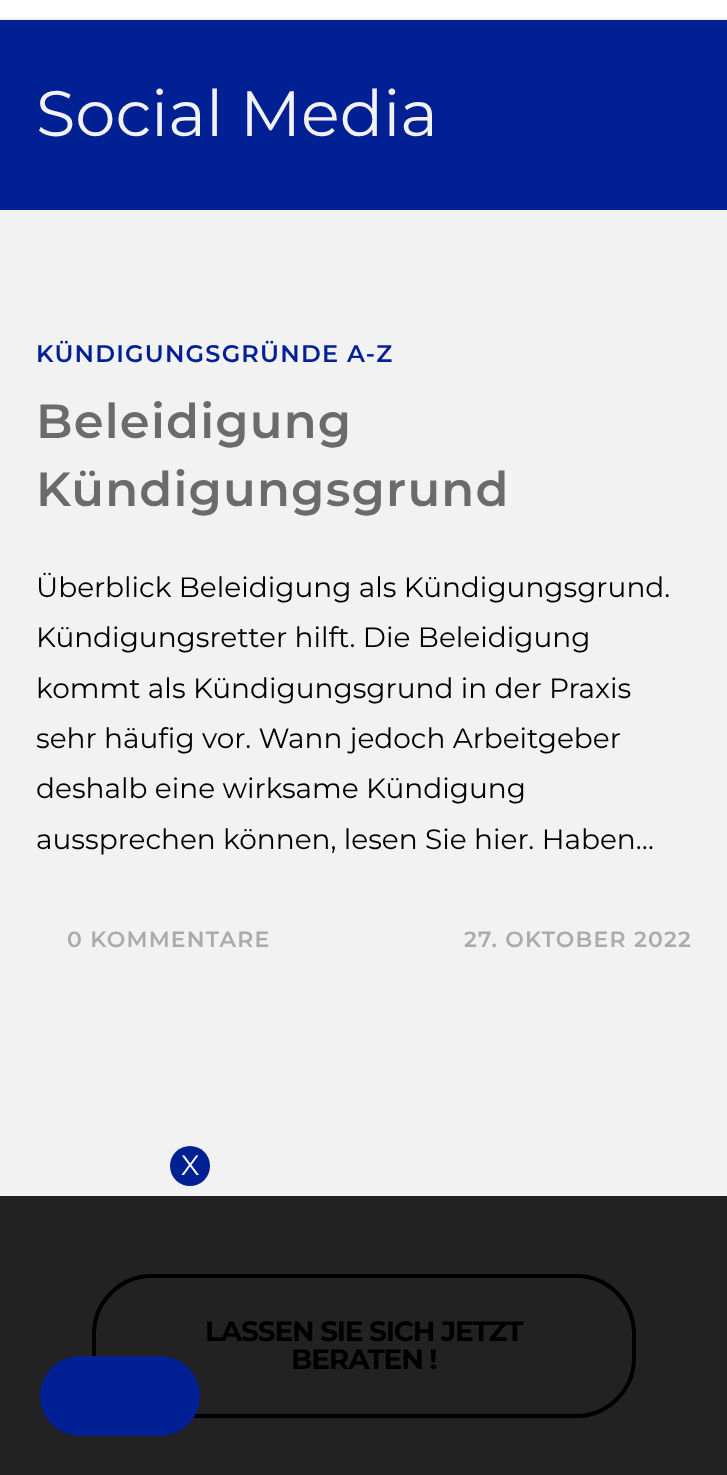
<svg xmlns="http://www.w3.org/2000/svg" width="727" height="1475">
<style>
.a{font:64px Montserrat;fill:#f2f2f2}
.b{font:600 24px Montserrat;letter-spacing:1.2px;fill:#002094}
.c{font:600 48px Montserrat;letter-spacing:1.2px;fill:#6b6b6b}
.d{font:28px Montserrat;fill:#000}
.e{font:600 22px Montserrat;letter-spacing:1.2px;fill:#ababab}
.f{font:bold 28px Montserrat;letter-spacing:-1.2px;fill:#000}
.g{font:28px Montserrat;fill:#fff}
</style>
<rect width="100%" height="100%" fill="#222"/>
<path fill="#fff" d="M0 0h727v18H0z"/>
<path fill="#f2f2f2" d="M0 18h727v2H0z"/>
<path fill="#f2f2f2" d="M0 210h727v986H0z"/>
<path fill="#002094" d="M0 20h727v190H0z"/>
<rect fill="none" stroke="#000" stroke-width="4" x="94" y="1276" width="540" height="140" rx="58"/>
<circle fill="#002094" cx="190" cy="1166" r="20"/>
<rect fill="#002094" stroke="#002094" stroke-width="4" x="42" y="1358" width="156" height="76" rx="38"/>
<text class="a" x="36" y="136">Social Media</text>
<text class="b" x="36" y="362">KÜNDIGUNGSGRÜNDE A-Z</text>
<text class="c" x="36" y="438">Beleidigung</text>
<text class="c" x="36" y="506">Kündigungsgrund</text>
<text class="d" x="36" y="597">Überblick Beleidigung als Kündigungsgrund.</text>
<text class="d" x="36" y="647">Kündigungsretter hilft. Die Beleidigung</text>
<text class="d" x="36" y="698">kommt als Kündigungsgrund in der Praxis</text>
<text class="d" x="36" y="748">sehr häufig vor. Wann jedoch Arbeitgeber</text>
<text class="d" x="36" y="798">deshalb eine wirksame Kündigung</text>
<text class="d" x="36" y="849">aussprechen können, lesen Sie hier. Haben…</text>
<text class="e" x="67" y="947">0 KOMMENTARE</text>
<text class="e" x="464" y="947">27. OKTOBER 2022</text>
<text class="f" x="205" y="1341">LASSEN SIE SICH JETZT</text>
<text class="f" x="291" y="1369">BERATEN !</text>
<text class="g" x="181" y="1175">X</text>
</svg>
